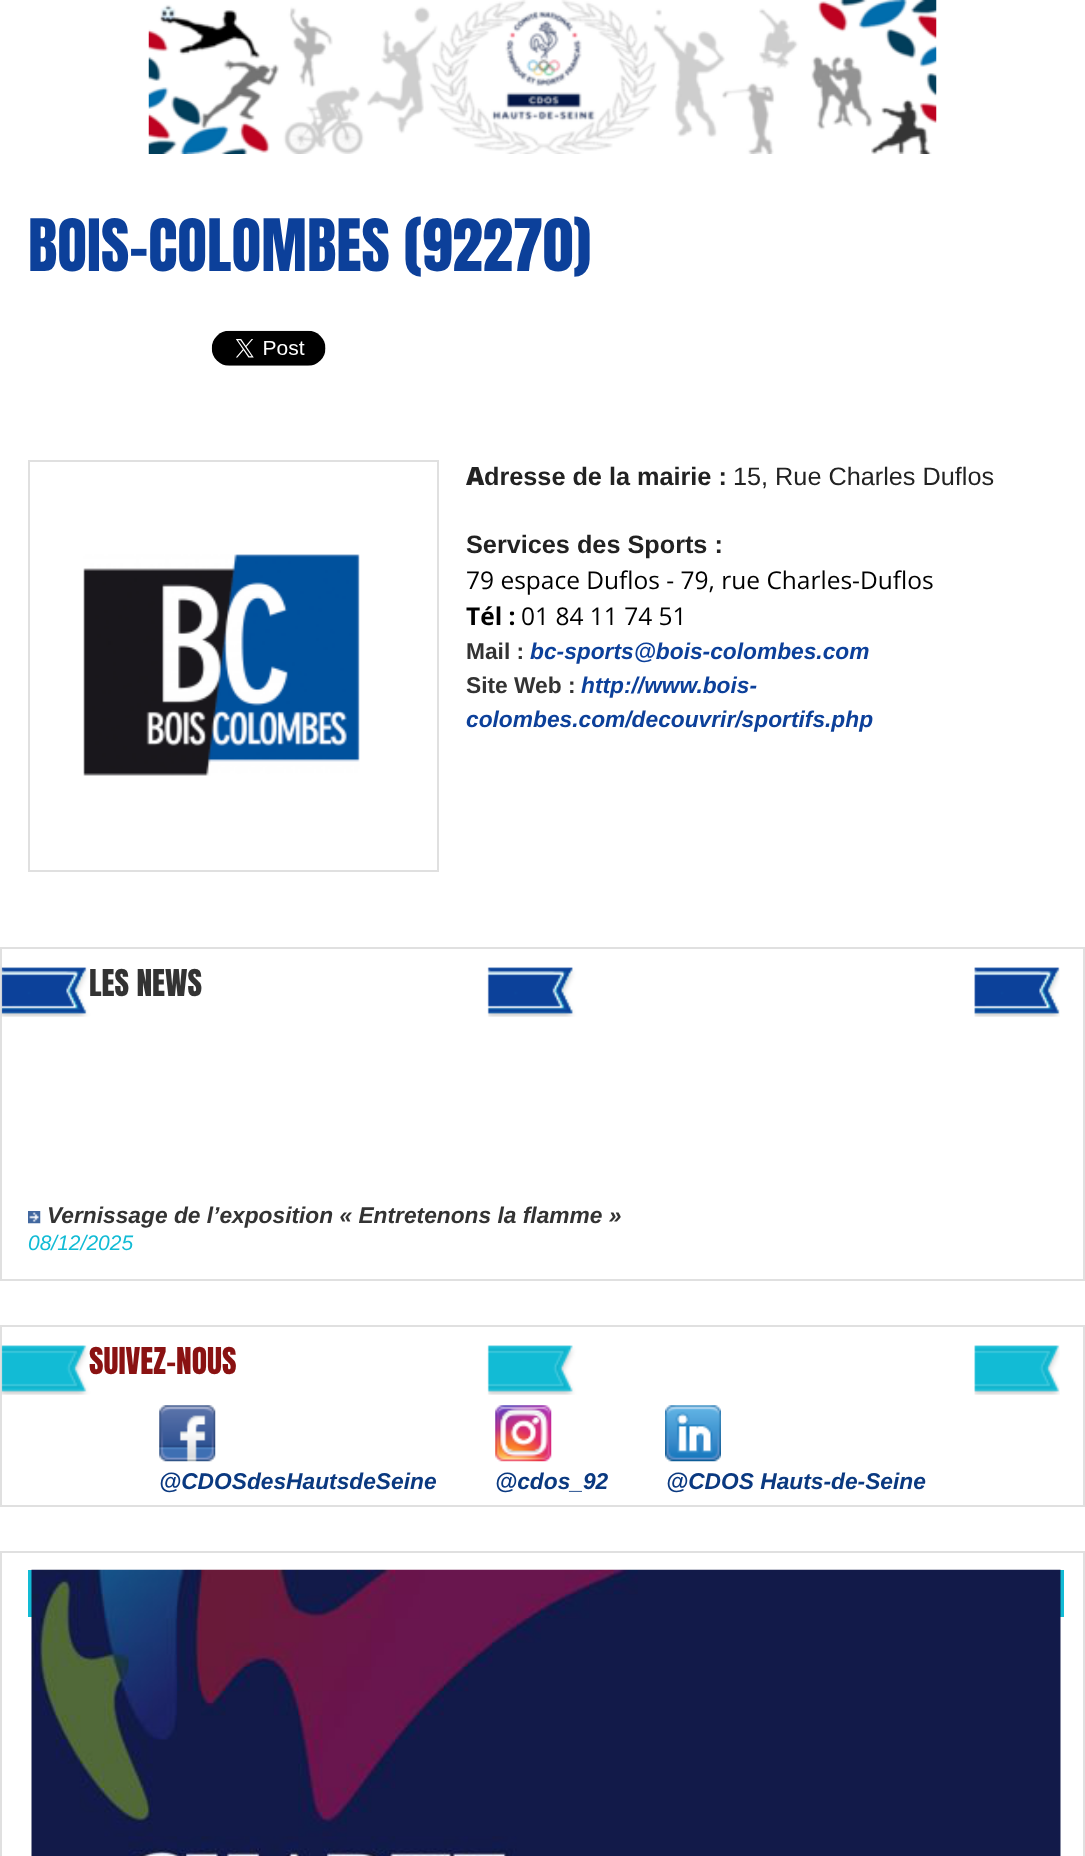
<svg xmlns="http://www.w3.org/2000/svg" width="1085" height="1856">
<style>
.a{font:61.25px Anton;fill:#0c409a}
.b{font:900 25.25px Noto Sans;fill:#222}
.c{font:bold 25.25px Liberation Sans;fill:#222}
.d{font:25.25px Liberation Sans;fill:#222}
.e{font:24.5px Open Sans;fill:#000}
.f{font:bold 24.5px Open Sans;fill:#000}
.g{font:bold 22.75px Liberation Sans;fill:#333}
.h{font:italic bold 22.75px Liberation Sans;fill:#0c409a}
.i{font:31.5px Anton;fill:#333}
.j{font:italic bold 22.75px Liberation Sans;fill:#333}
.k{font:italic 21px Liberation Sans;fill:#12bbd5}
.l{font:31.5px Anton;fill:#8a1212}
.m{font:italic bold 22.75px Liberation Sans;fill:#0a3980}
</style>
<rect width="100%" height="100%" fill="#fff"/>
<image href="1.png" x="148" y="0" width="789" height="154"/>
<image href="2.png" x="211" y="330" width="115" height="36"/>
<path fill="none" stroke="#e0e0e0" stroke-width="2" d="M29 461h409v410H29z"/>
<image href="3.png" x="83" y="554" width="277" height="222"/>
<path fill="none" stroke="#e0e0e0" stroke-width="2" d="M1 948h1083v332H1z"/>
<image href="4.png" x="1" y="967" width="1059" height="50"/>
<image href="5.png" x="28" y="1211" width="13" height="13"/>
<path fill="none" stroke="#e0e0e0" stroke-width="2" d="M1 1326h1083v180H1z"/>
<image href="6.png" x="1" y="1345" width="1059" height="50"/>
<image href="7.png" x="159" y="1405" width="57" height="57"/>
<image href="8.png" x="495" y="1405" width="57" height="57"/>
<image href="9.png" x="665" y="1405" width="56" height="57"/>
<path fill="none" stroke="#e0e0e0" stroke-width="2" d="M1 1552h1083v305H1z"/>
<path fill="#12bbd5" d="M28 1570h1036v47H28z"/>
<image href="10.png" x="31" y="1569" width="1030" height="287"/>
<text class="a" x="28" y="271">BOIS-COLOMBES (92270)</text>
<text class="b" x="466" y="485">A</text>
<text class="c" x="484" y="485">dresse de la mairie :</text>
<text class="d" x="733" y="485">15, Rue Charles Duflos</text>
<text class="c" x="466" y="553">Services des Sports :</text>
<text class="e" x="466" y="589">79 espace Duflos - 79, rue Charles-Duflos</text>
<text class="f" x="466" y="625">Tél :</text>
<text class="e" x="521" y="625">01 84 11 74 51</text>
<text class="g" x="466" y="659">Mail :</text>
<text class="h" x="530" y="659">bc-sports@bois-colombes.com</text>
<text class="g" x="466" y="693">Site Web :</text>
<text class="h" x="581" y="693">http://www.bois-</text>
<text class="h" x="466" y="727">colombes.com/decouvrir/sportifs.php</text>
<text class="i" x="89" y="996">LES NEWS</text>
<text class="j" x="47" y="1223">Vernissage de l’exposition « Entretenons la flamme »</text>
<text class="k" x="28" y="1250">08/12/2025</text>
<text class="l" x="89" y="1374">SUIVEZ-NOUS</text>
<text class="m" x="159" y="1489">@CDOSdesHautsdeSeine</text>
<text class="m" x="495" y="1489">@cdos_92</text>
<text class="m" x="666" y="1489">@CDOS Hauts-de-Seine</text>
</svg>
